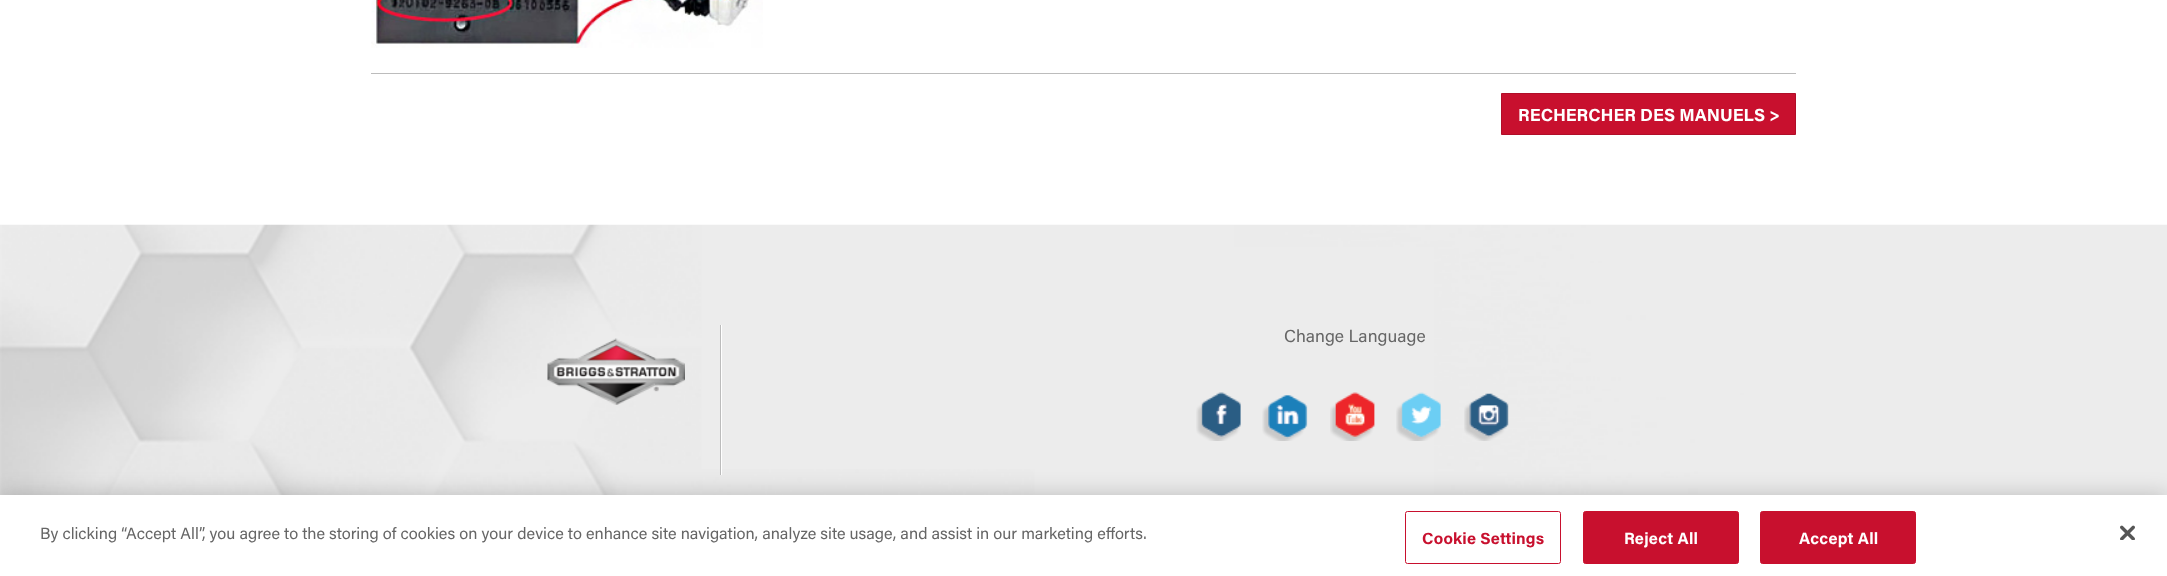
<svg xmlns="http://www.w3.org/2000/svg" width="2167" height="576">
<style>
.a{font:bold 17.5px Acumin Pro;fill:#fff}
.b{font:17.5px Acumin Pro;fill:#666}
.c{font:16.25px Acumin Pro;fill:#666}
.d{font:bold 16.25px Acumin Pro;letter-spacing:0.2px;fill:#c8102e}
.e{font:bold 16.25px Acumin Pro;letter-spacing:0.2px;fill:#fff}
</style>
<rect width="100%" height="100%" fill="#fff"/>
<image href="1.png" x="371" y="0" width="392" height="48"/>
<path fill="#bcbcbc" d="M371 73h1425v1H371z"/>
<path fill="#c8102e" stroke="#b00e29" d="M1501.5 93.5h294v41H1501.5z"/>
<image href="2.png" x="0" y="224" width="2167" height="271"/>
<path fill="#fff" d="M721 325h1v150H721z"/>
<image href="3.png" x="547" y="338" width="138" height="67"/>
<path fill="#bcbcbc" d="M720 325h1v150H720z"/>
<image href="4.png" x="1196" y="392" width="45" height="49"/>
<image href="5.png" x="1262" y="395" width="46" height="46"/>
<image href="6.png" x="1330" y="392" width="45" height="49"/>
<image href="7.png" x="1396" y="392" width="45" height="49"/>
<image href="8.png" x="1464" y="393" width="45" height="48"/>
<path fill="#00000033" filter="blur(11px)" d="M0 495h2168v81H0z"/>
<path fill="#fff" d="M0 495h2167v81H0z"/>
<rect fill="none" stroke="#c8102e" x="1405.5" y="511.5" width="155" height="52" rx="2"/>
<rect fill="#c8102e" stroke="#c8102e" x="1583.5" y="511.5" width="155" height="52" rx="2"/>
<rect fill="#c8102e" stroke="#c8102e" x="1760.5" y="511.5" width="155" height="52" rx="2"/>
<image href="9.png" x="2120" y="525" width="15" height="15"/>
<text class="a" x="1518" y="121">RECHERCHER DES MANUELS &gt;</text>
<text class="b" x="1284" y="342">Change Language</text>
<text class="c" x="40" y="539">By clicking “Accept All”, you agree to the storing of cookies on your device to enhance site navigation, analyze site usage, and assist in our marketing efforts.</text>
<text class="d" x="1422" y="544">Cookie Settings</text>
<text class="e" x="1624" y="544">Reject All</text>
<text class="e" x="1799" y="544">Accept All</text>
</svg>
